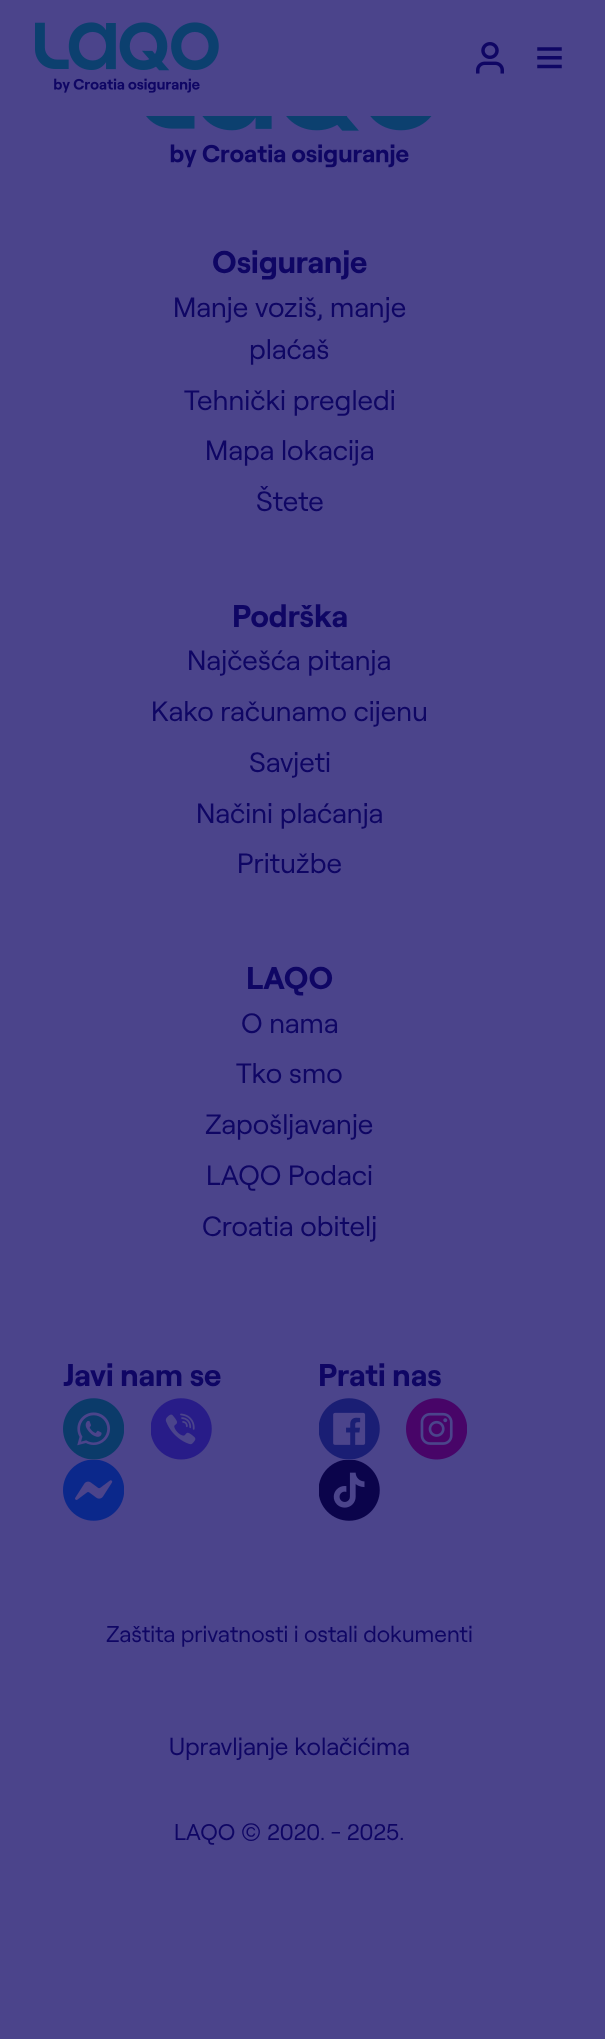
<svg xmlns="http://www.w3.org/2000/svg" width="605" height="2039">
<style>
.a{font:bold 31.5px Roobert;fill:#0f0664}
.b{font:28px Roobert;fill:#0f0664}
.c{font:22.75px Roobert;fill:#0f0664}
.d{font:24.5px Roobert;fill:#0f0664}
</style>
<rect width="100%" height="100%" fill="#4b448b"/>
<image href="1.png" x="35" y="22" width="184" height="71"/>
<image href="2.png" x="476" y="42" width="28" height="32"/>
<image href="3.png" x="537" y="47" width="25" height="22"/>
<image href="4.png" x="146" y="116" width="286" height="52"/>
<image href="5.png" x="63" y="1398" width="61" height="62"/>
<image href="6.png" x="151" y="1398" width="61" height="62"/>
<image href="7.png" x="63" y="1460" width="61" height="61"/>
<image href="8.png" x="319" y="1398" width="61" height="62"/>
<image href="9.png" x="406" y="1398" width="61" height="62"/>
<image href="10.png" x="319" y="1460" width="61" height="61"/>
<text class="a" x="212" y="273">Osiguranje</text>
<text class="b" x="173" y="317">Manje voziš, manje</text>
<text class="b" x="249" y="359">plaćaš</text>
<text class="b" x="184" y="410">Tehnički pregledi</text>
<text class="b" x="205" y="460">Mapa lokacija</text>
<text class="b" x="256" y="511">Štete</text>
<text class="a" x="232" y="627">Podrška</text>
<text class="b" x="187" y="670">Najčešća pitanja</text>
<text class="b" x="151" y="721">Kako računamo cijenu</text>
<text class="b" x="249" y="772">Savjeti</text>
<text class="b" x="196" y="823">Načini plaćanja</text>
<text class="b" x="237" y="873">Pritužbe</text>
<text class="a" x="246" y="989">LAQO</text>
<text class="b" x="241" y="1033">O nama</text>
<text class="b" x="236" y="1083">Tko smo</text>
<text class="b" x="205" y="1134">Zapošljavanje</text>
<text class="b" x="206" y="1185">LAQO Podaci</text>
<text class="b" x="202" y="1236">Croatia obitelj</text>
<text class="a" x="63" y="1386">Javi nam se</text>
<text class="a" x="318" y="1386">Prati nas</text>
<text class="c" x="106" y="1642">Zaštita privatnosti i ostali dokumenti</text>
<text class="d" x="169" y="1755">Upravljanje kolačićima</text>
<text class="c" x="174" y="1840">LAQO © 2020. - 2025.</text>
</svg>
